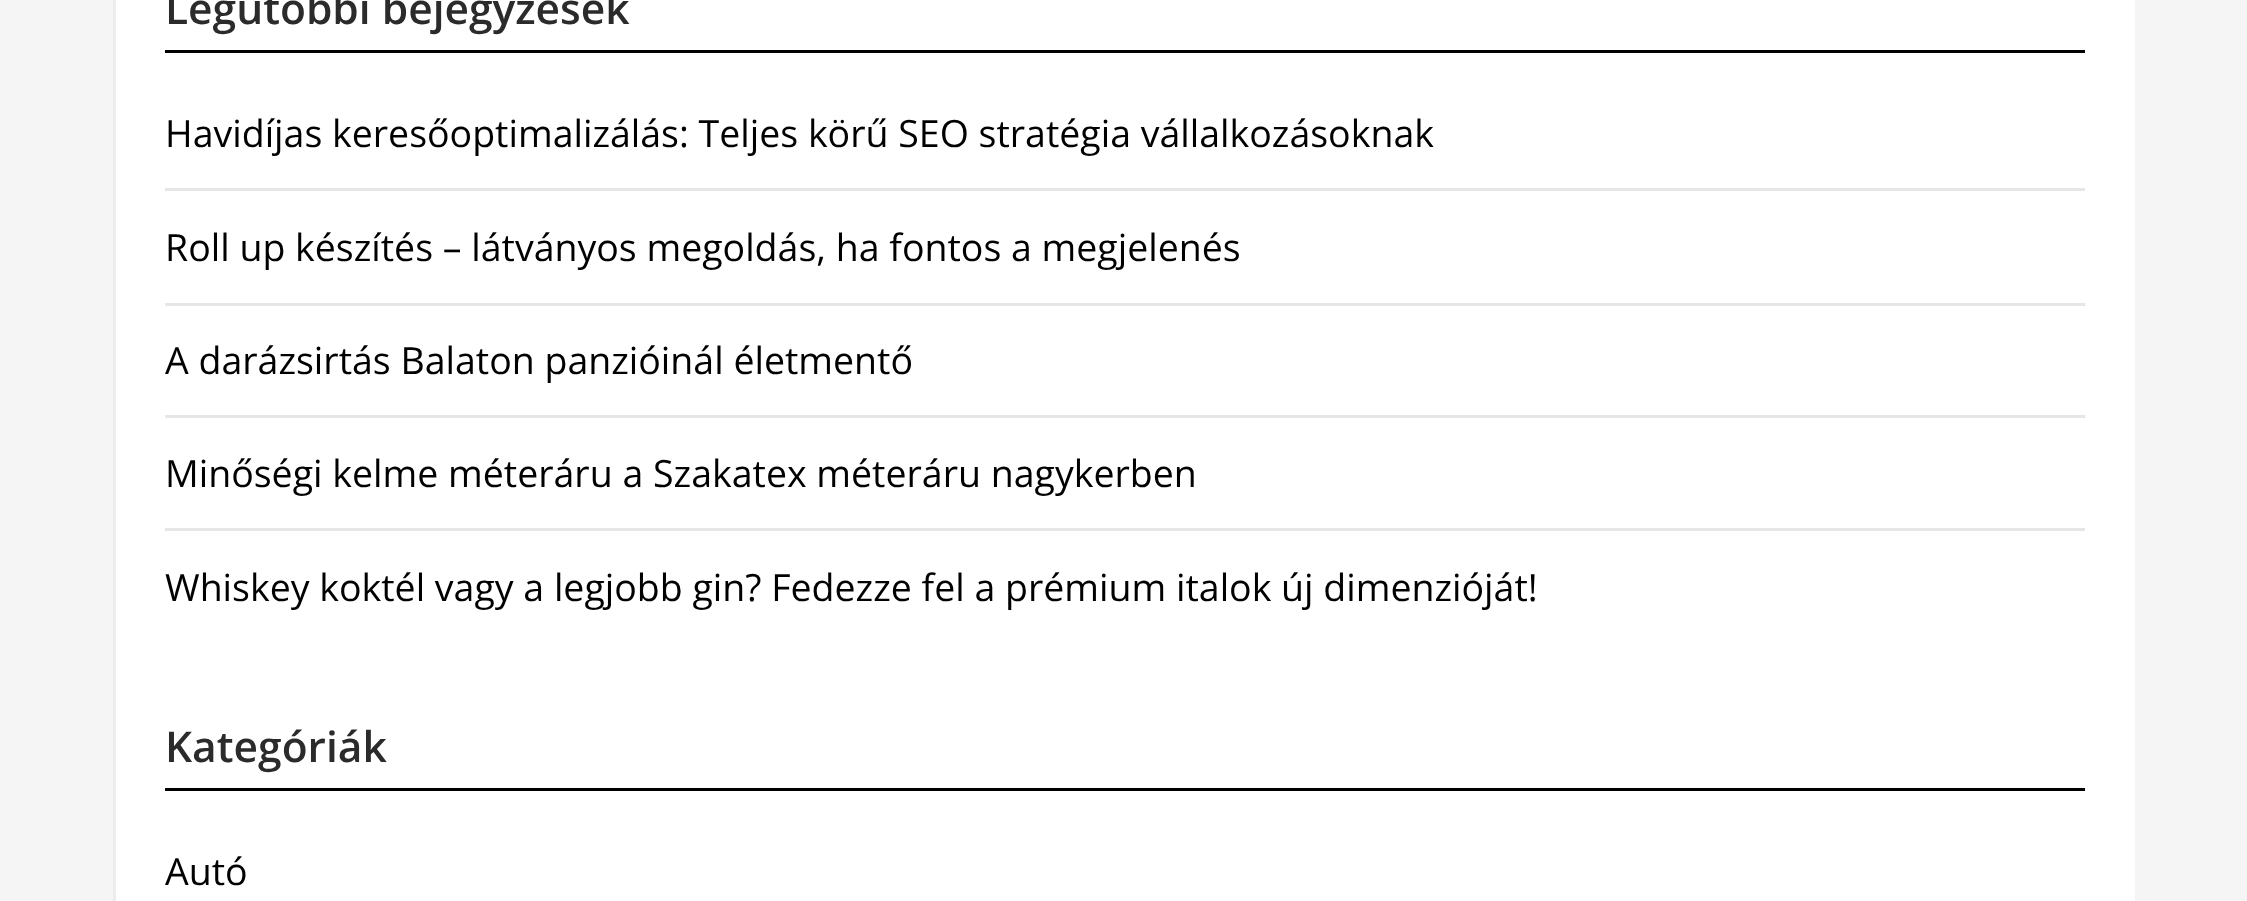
<svg xmlns="http://www.w3.org/2000/svg" width="2247" height="901">
<style>
.a{font:600 42.5px Open Sans;fill:#2b2b2b}
.b{font:37.5px Open Sans;fill:#000}
</style>
<rect width="100%" height="100%" fill="#f5f5f5"/>
<path fill="#fff" d="M116 0h2019v901H116z"/>
<path fill="#ececec" d="M113 0h3v901H113z"/>
<path fill="#000" d="M165 50h1920v3H165z"/>
<path fill="#e6e6e6" d="M165 188h1920v3H165z"/>
<path fill="#e6e6e6" d="M165 303h1920v3H165z"/>
<path fill="#e6e6e6" d="M165 415h1920v3H165z"/>
<path fill="#e6e6e6" d="M165 528h1920v3H165z"/>
<path fill="#000" d="M165 788h1920v3H165z"/>
<text class="a" x="165" y="24">Legutóbbi bejegyzések</text>
<text class="b" x="165" y="147">Havidíjas keresőoptimalizálás: Teljes körű SEO stratégia vállalkozásoknak</text>
<text class="b" x="165" y="261">Roll up készítés – látványos megoldás, ha fontos a megjelenés</text>
<text class="b" x="165" y="374">A darázsirtás Balaton panzióinál életmentő</text>
<text class="b" x="165" y="487">Minőségi kelme méteráru a Szakatex méteráru nagykerben</text>
<text class="b" x="165" y="601">Whiskey koktél vagy a legjobb gin? Fedezze fel a prémium italok új dimenzióját!</text>
<text class="a" x="165" y="762">Kategóriák</text>
<text class="b" x="165" y="885">Autó</text>
</svg>
